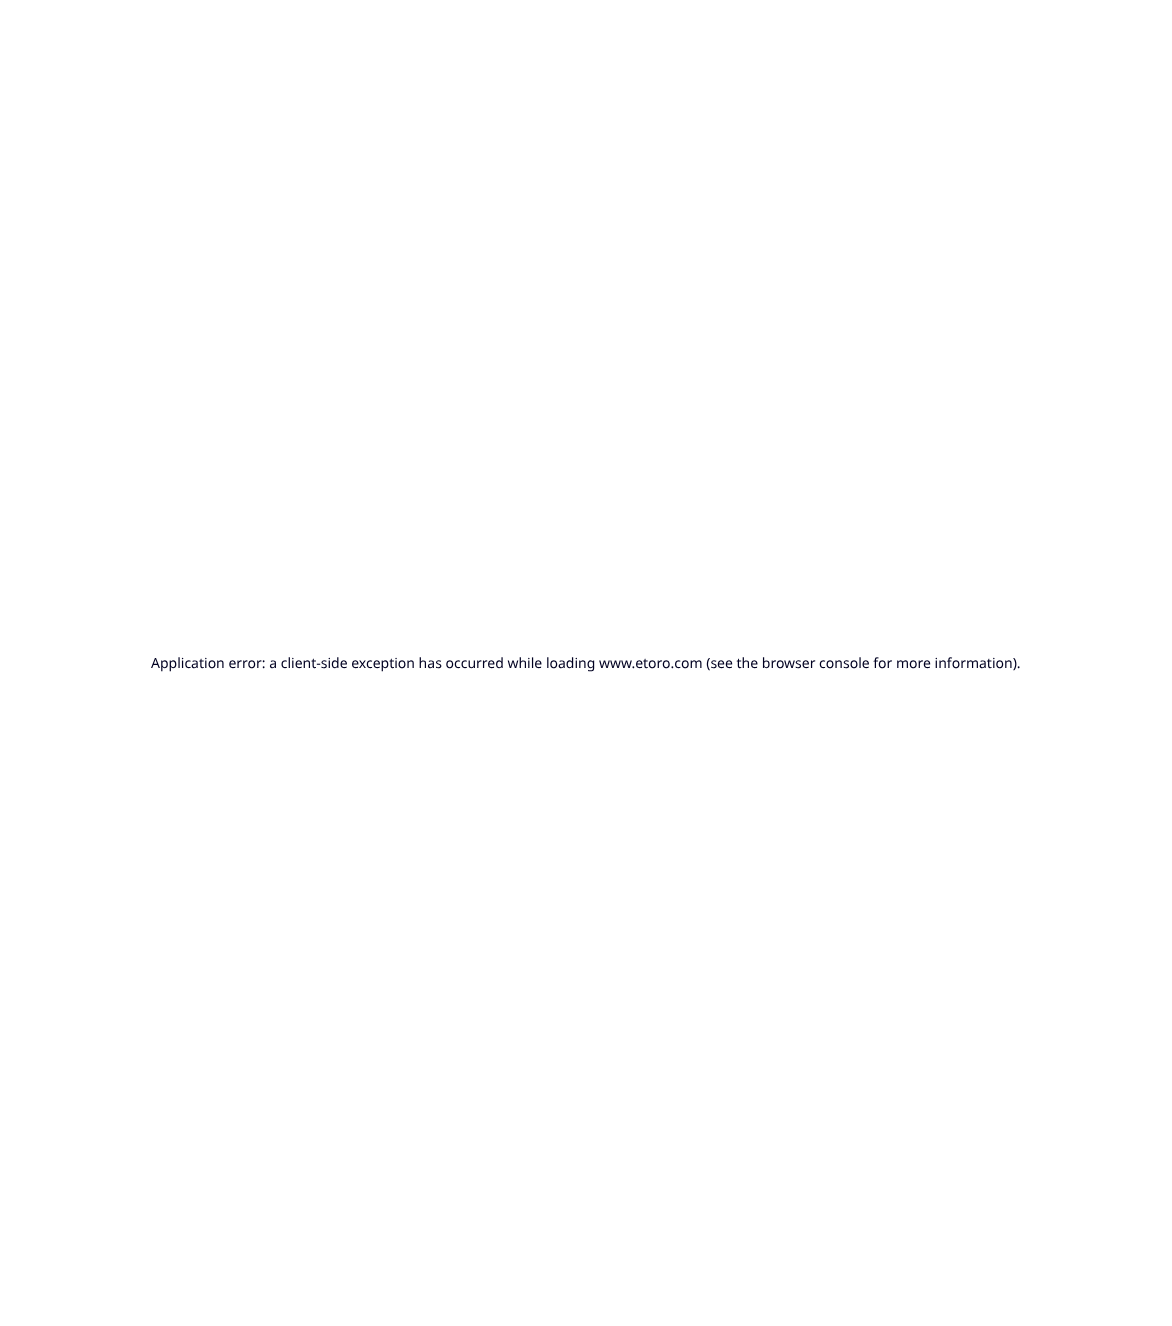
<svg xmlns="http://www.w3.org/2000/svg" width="1172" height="1326">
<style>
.a{font:14px Noto Sans;fill:#000021}
</style>
<rect width="100%" height="100%" fill="#fff"/>
<text class="a" x="151" y="668">Application error: a client-side exception has occurred while loading www.etoro.com (see the browser console for more information).</text>
</svg>
